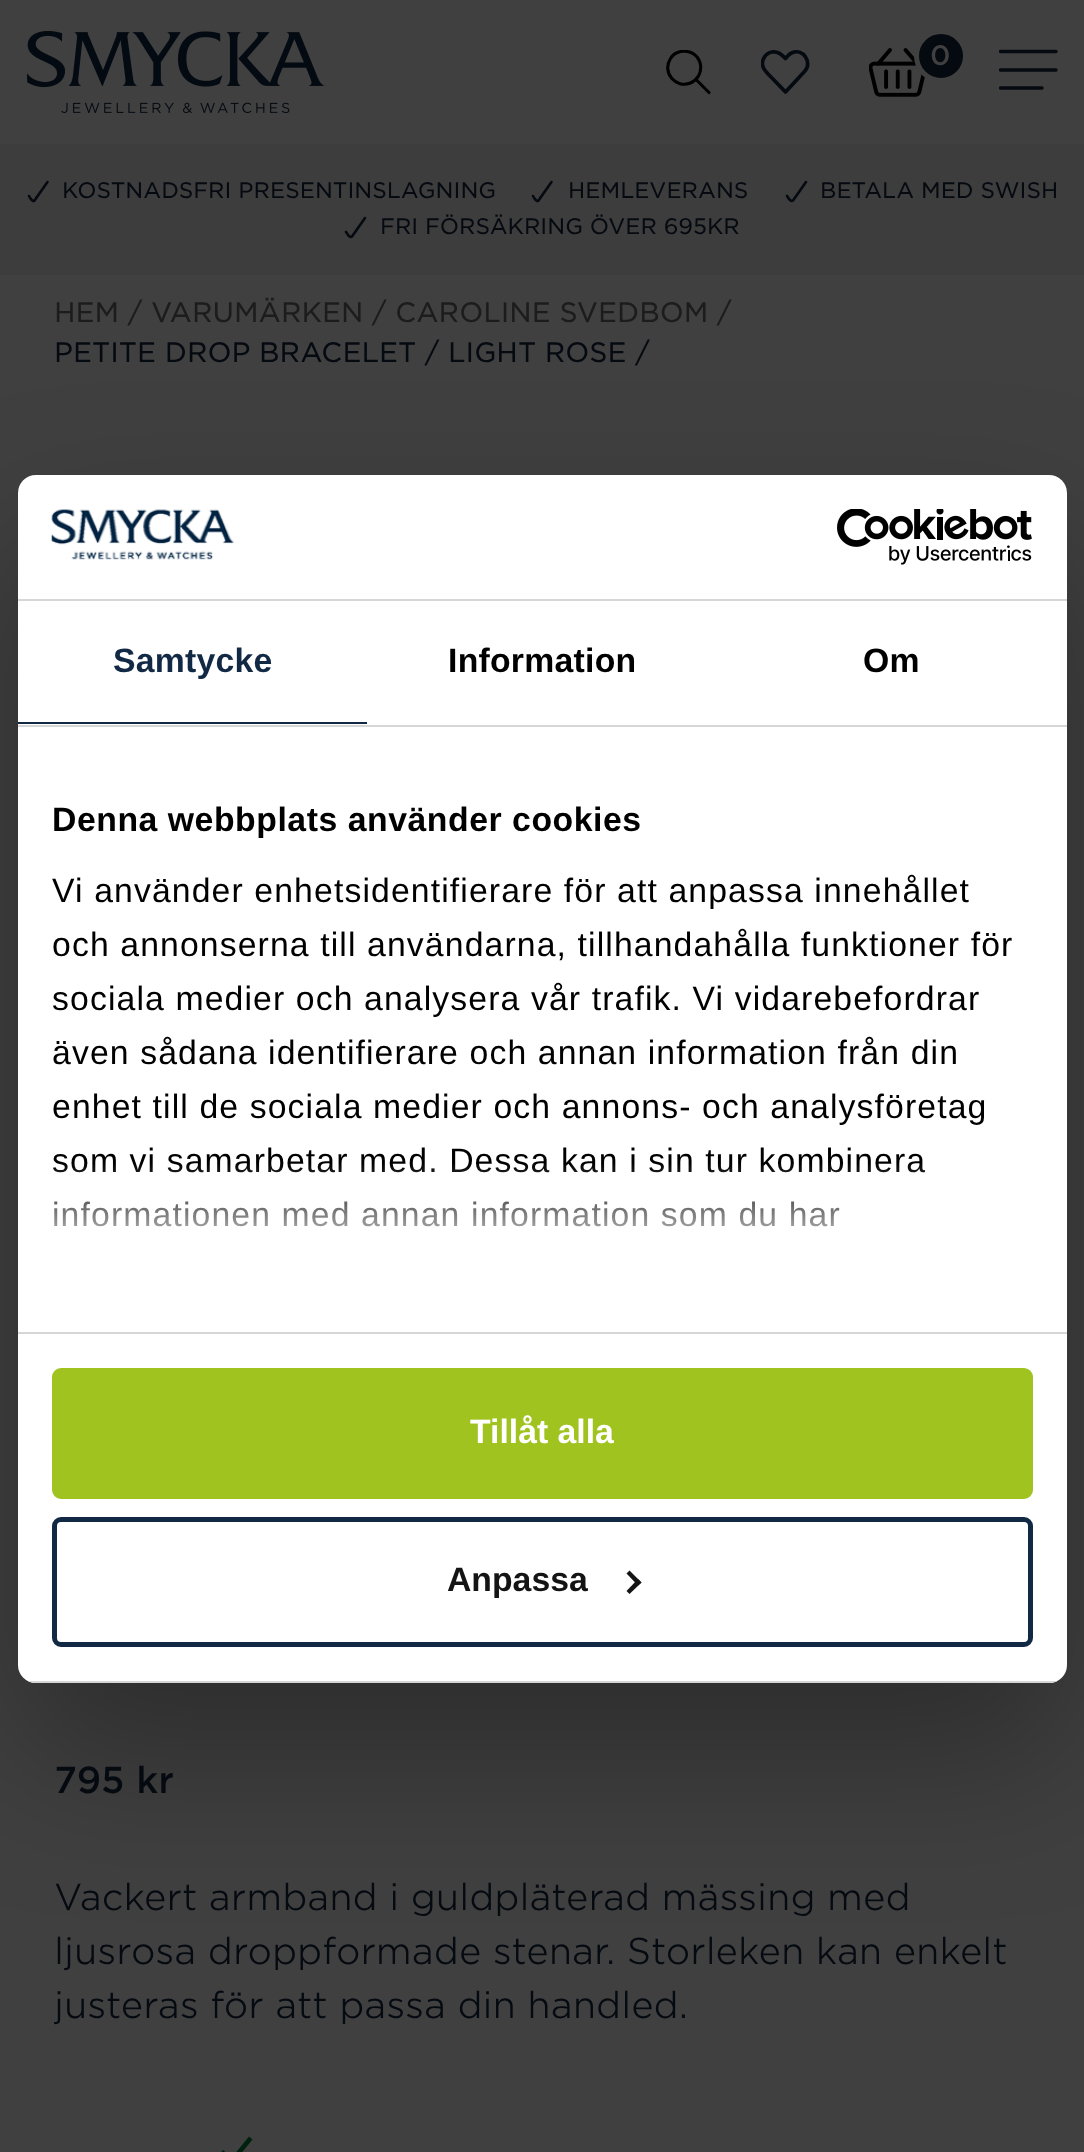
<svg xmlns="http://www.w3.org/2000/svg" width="1084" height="2152">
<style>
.a{font:300 27px 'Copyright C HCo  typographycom';fill:#404040}
.b{font:300 21.6px 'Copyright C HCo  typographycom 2';fill:#050a11}
.c{font:300 27px 'Copyright C HCo  typographycom 2';fill:#1c1c1c}
.d{font:300 27px 'Copyright C HCo  typographycom 2';fill:#050a11}
.e{font:300 36px 'Copyright C HCo  typographycom';fill:#050a11}
.f{font:300 36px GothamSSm;fill:#050a11}
.g{font:bold 33.75px Liberation Sans;letter-spacing:0.25px;fill:#122945}
.h{font:bold 33.75px Liberation Sans;letter-spacing:0.25px;fill:#000}
.i{font:bold 33.75px Liberation Sans;letter-spacing:0.55px;fill:#000}
.j{font:33.75px Liberation Sans;letter-spacing:1.12px;fill:#000}
.k{font:bold 33.75px Liberation Sans;fill:#fff}
.l{font:bold 33.75px Liberation Sans;fill:#141414}
</style>
<defs>
<clipPath id="clip1"><path d="M666 50h45v45H666z"/></clipPath>
<clipPath id="clip2"><path d="M761 47h49v50H761z"/></clipPath>
<clipPath id="clip3"><path d="M999 47h59v45H999z"/></clipPath>
<clipPath id="clip4"><rect x="18" y="475" width="1049" height="1208" rx="18"/></clipPath>
<linearGradient id="g1" gradientUnits="userSpaceOnUse" x1="528" y1="1331" x2="528" y2="1162"><stop offset="0" stop-color="#fff"/><stop offset="0.5" stop-color="#fff" stop-opacity="0.8"/><stop offset="1" stop-color="#fff" stop-opacity="0"/></linearGradient>
</defs>
<rect width="100%" height="100%" fill="#404040"/>
<image href="1.png" x="27" y="31" width="297" height="82"/>
<g clip-path="url(#clip1)">
<path fill="none" stroke="#000" stroke-width="3.1" stroke-linecap="round" stroke-linejoin="round" d="M690.5 83c15-6.5 13-28.5-3-31.5c-3.5-.5-6.5-.5-10 1c-3 1-5.5 3.5-7 6c-9 14 5.5 30.5 20 24.5z"/>
</g>
<path fill="none" stroke="#000" stroke-width="3.1" stroke-linecap="round" stroke-linejoin="round" d="M696 79.5l13 13"/>
<g clip-path="url(#clip2)">
<path fill="none" stroke="#050a11" stroke-width="3.7" stroke-linecap="round" stroke-linejoin="round" d="M785.5 92l-13-13.5c-6-6-14-12.5-8-21.5c1.5-2.5 4.5-4.5 7.5-5c6-1 9.5 2.5 13.5 6.5c1.5-2 3.5-4.5 6-5.5c11.5-5.5 21.5 10 13 18.5z"/>
</g>
<image href="2.png" x="869" y="48" width="56" height="49"/>
<circle fill="#050a11" stroke="#404040" stroke-width="5" cx="941" cy="56" r="24.5"/>
<g clip-path="url(#clip3)">
<path fill="none" stroke="#050a11" stroke-width="3.4" stroke-linecap="round" d="M1056 51.5h-55.5m55.5 18.5h-55.5m41.5 18h-41.5"/>
</g>
<path fill="#3d3d3d" d="M0 144h1084v131H0z"/>
<path fill="none" stroke="#050a11" stroke-width="2.6" stroke-linecap="round" stroke-linejoin="round" d="M47.5 182l-13 18.5c-2 2-5-3.5-5.5-4.5"/>
<path fill="none" stroke="#050a11" stroke-width="2.6" stroke-linecap="round" stroke-linejoin="round" d="M551.5 182l-13 18.5c-2 2-5-3.5-5.5-4.5"/>
<path fill="none" stroke="#050a11" stroke-width="2.6" stroke-linecap="round" stroke-linejoin="round" d="M806 182l-13 18.5c-2.5 2-5-3.5-6-4.5"/>
<path fill="none" stroke="#050a11" stroke-width="2.6" stroke-linecap="round" stroke-linejoin="round" d="M365 218l-13 18.5c-2.5 2-5-3.5-6-4.5"/>
<path fill="#00210e" d="M249 2136.5l3.5 3l-20 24.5l-3.5-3zm-26 13.5l12 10.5l-2.5 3.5l-12.5-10.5z"/>
<rect fill="#0000004d" filter="blur(76.5px)" x="18" y="547" width="1049" height="1208" rx="18"/>
<rect fill="#fff" x="18" y="475" width="1049" height="1208" rx="18"/>
<path fill="#d6d6d6" d="M18 599h1049v2H18z"/>
<image href="3.png" x="51" y="509" width="183" height="51"/>
<image href="4.png" x="837" y="509" width="195" height="56"/>
<path fill="#d6d6d6" d="M18 725h1049v2H18z"/>
<path fill="#122945" d="M18 722h349v2H18z"/>
<path fill="#d6d6d6" d="M18 1332h1049v2H18z"/>
<g clip-path="url(#clip4)">
<path fill="#d6d6d6" d="M28 1681h1029v2H28z"/>
</g>
<rect fill="#a0c320" stroke="#a0c320" stroke-width="5" x="54.5" y="1370.5" width="976" height="126" rx="6.5"/>
<rect fill="none" stroke="#122945" stroke-width="5" x="54.5" y="1519.5" width="976" height="125" rx="6.5"/>
<path fill="#141414" d="M629.5 1570.5l12 12l-3.5 3l-11.5-12z"/>
<path fill="#141414" d="M638 1579l3.5 3.5l-12 11.5l-3-3z"/>
<text class="a" x="930" y="65">0</text>
<text class="b" x="62" y="198">KOSTNADSFRI PRESENTINSLAGNING</text>
<text class="b" x="568" y="198">HEMLEVERANS</text>
<text class="b" x="820" y="198">BETALA MED SWISH</text>
<text class="b" x="380" y="234">FRI FÖRSÄKRING ÖVER 695KR</text>
<text class="c" x="54" y="322">HEM / VARUMÄRKEN / CAROLINE SVEDBOM /</text>
<text class="d" x="54" y="362">PETITE DROP BRACELET / LIGHT ROSE /</text>
<text class="e" x="54" y="1793">795 kr</text>
<text class="f" x="54" y="1910">Vackert armband i guldpläterad mässing med</text>
<text class="f" x="54" y="1964">ljusrosa droppformade stenar. Storleken kan enkelt</text>
<text class="f" x="54" y="2018">justeras för att passa din handled.</text>
<text class="g" x="113" y="672">Samtycke</text>
<text class="h" x="448" y="672">Information</text>
<text class="h" x="863" y="672">Om</text>
<text class="i" x="52" y="831">Denna webbplats använder cookies</text>
<text class="j" x="52" y="902">Vi använder enhetsidentifierare för att anpassa innehållet</text>
<text class="j" x="52" y="956">och annonserna till användarna, tillhandahålla funktioner för</text>
<text class="j" x="52" y="1010">sociala medier och analysera vår trafik. Vi vidarebefordrar</text>
<text class="j" x="52" y="1064">även sådana identifierare och annan information från din</text>
<text class="j" x="52" y="1118">enhet till de sociala medier och annons- och analysföretag</text>
<text class="j" x="52" y="1172">som vi samarbetar med. Dessa kan i sin tur kombinera</text>
<text class="j" x="52" y="1226">informationen med annan information som du har</text>
<path fill="url(#g1)" d="M53 1164h872v63H53z"/>
<text class="k" x="470" y="1443">Tillåt alla</text>
<text class="l" x="447" y="1591">Anpassa</text>
</svg>
